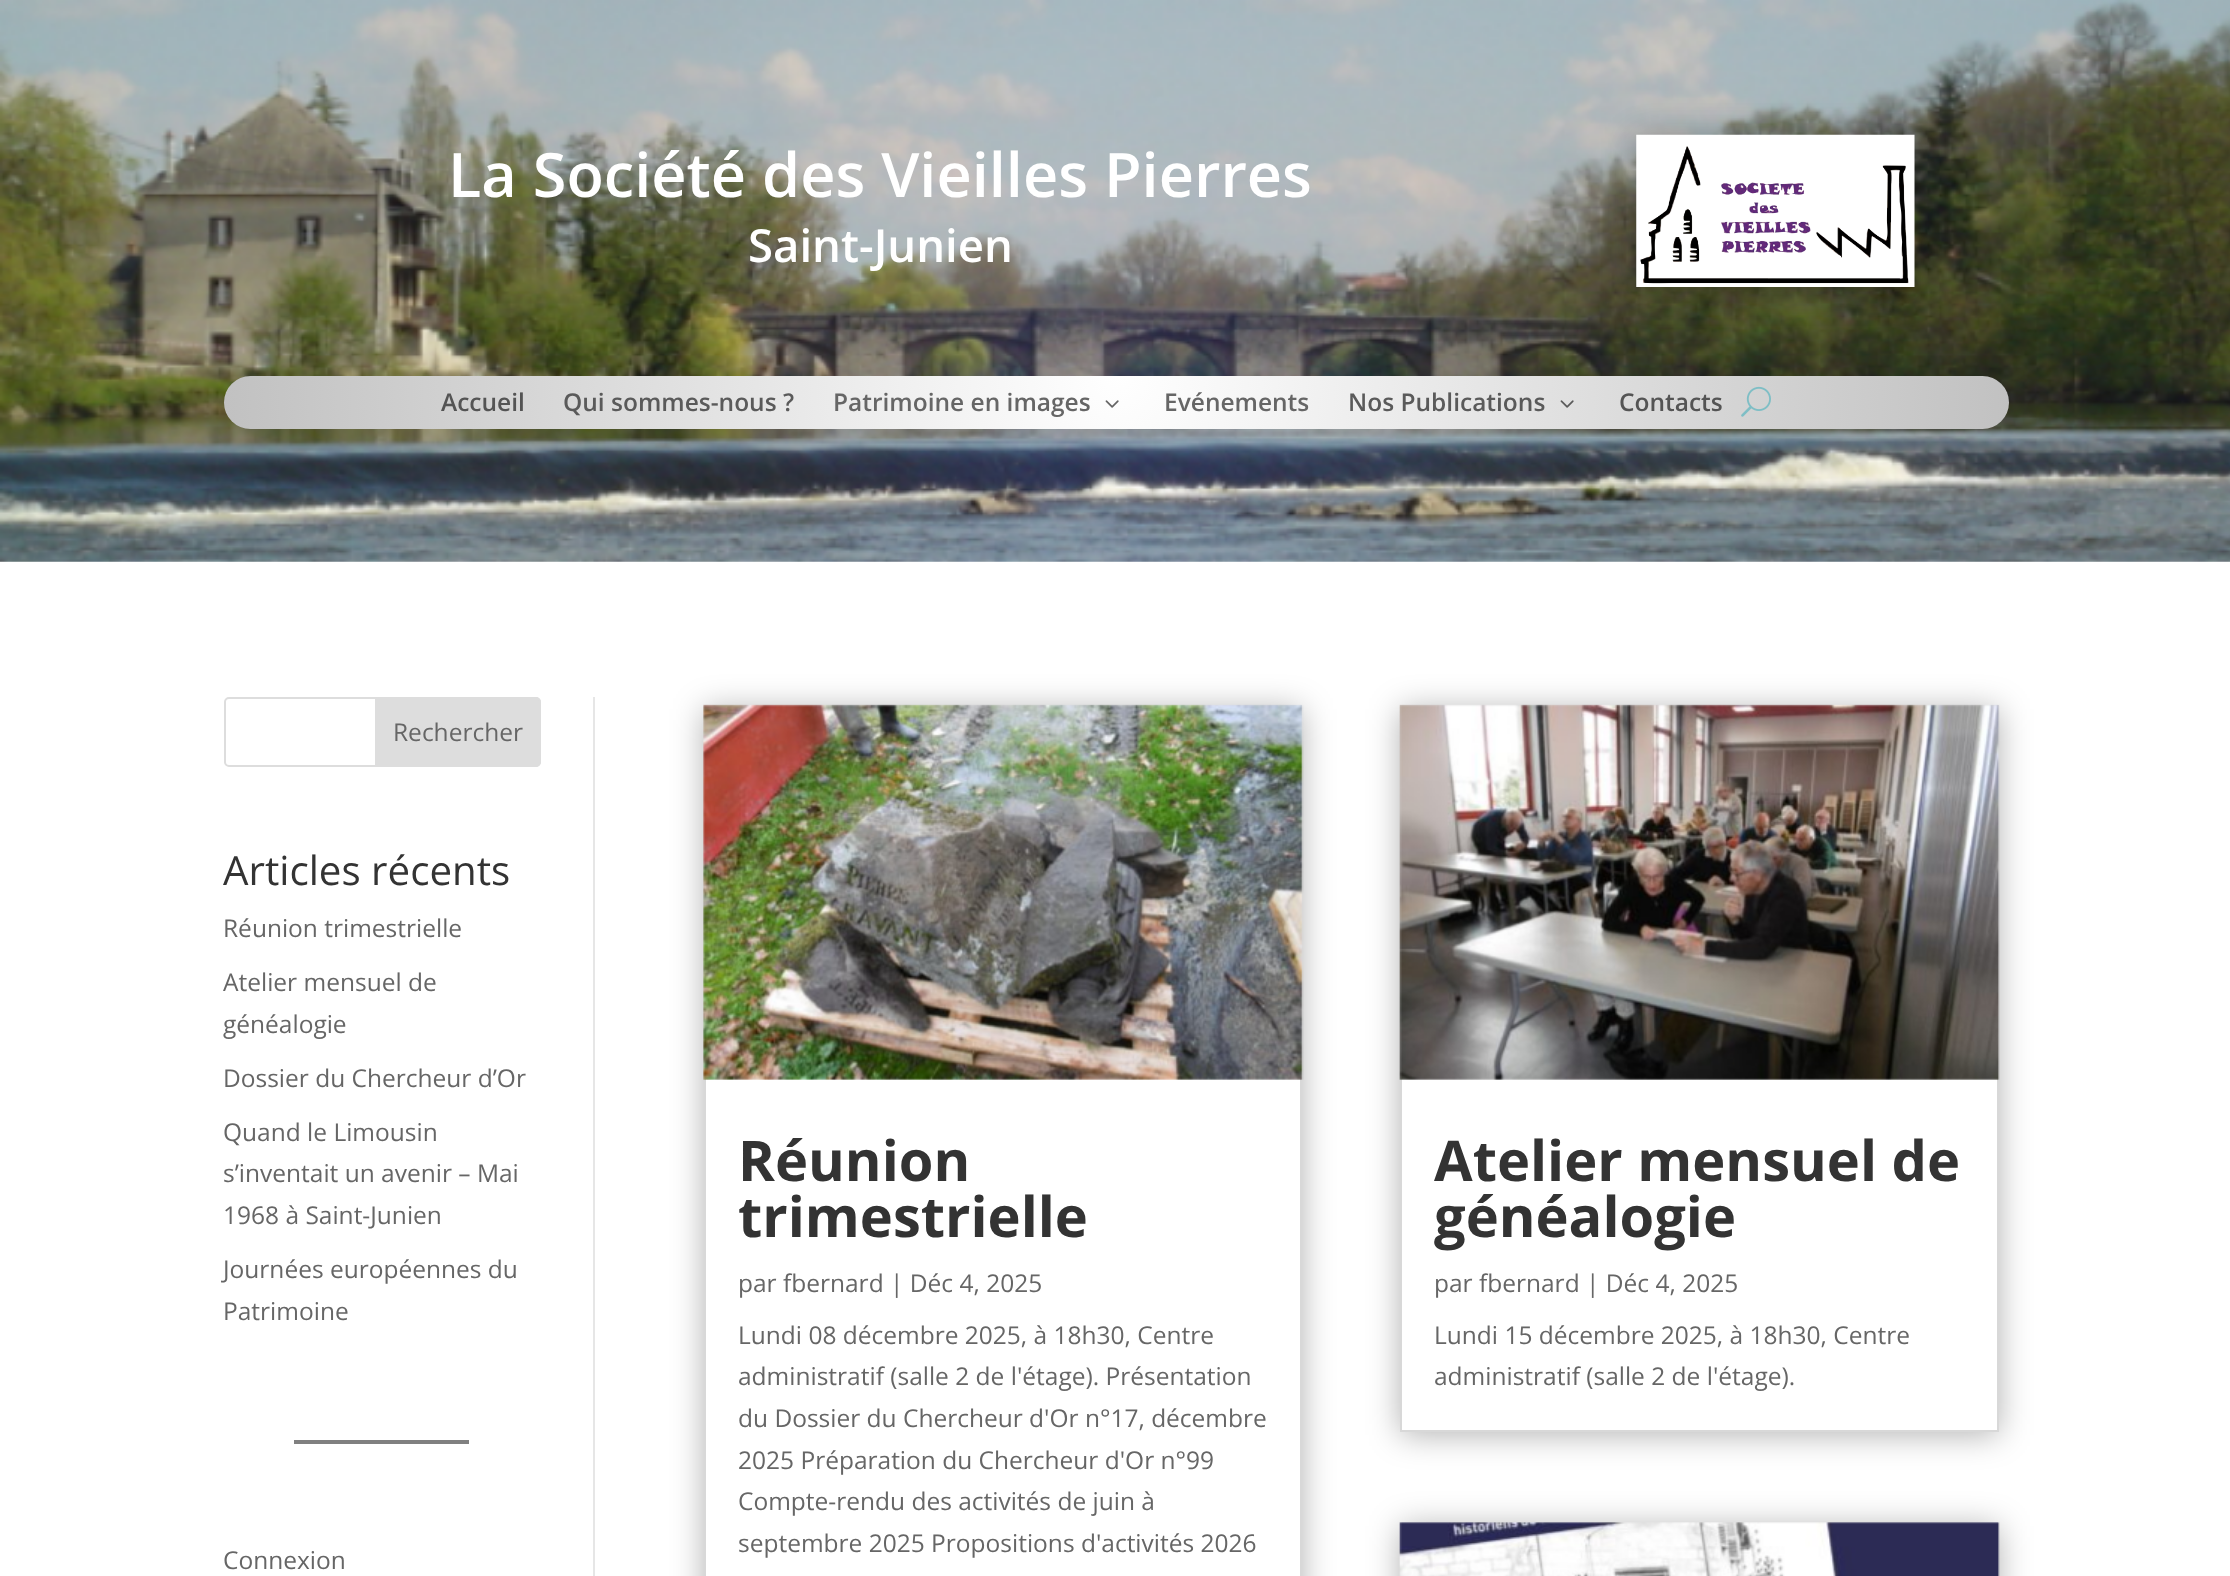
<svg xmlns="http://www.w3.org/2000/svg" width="2230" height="1576">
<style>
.a{font:600 61.25px Open Sans;fill:#fff}
.b{font:600 45.5px Open Sans;fill:#fff}
.c{font:600 24.5px Open Sans;fill:#545454}
.d{font:600 24.5px Open Sans;fill:#5a5a5a}
.e{font:600 24.5px Open Sans;fill:#666}
.f{font:24.5px Open Sans;fill:#666}
.g{font:40.25px Open Sans;fill:#333}
.h{font:bold 56px Open Sans;fill:#333}
</style>
<defs>
<radialGradient id="g1" gradientUnits="userSpaceOnUse" cx="1117" cy="376" r="894"><stop offset="0" stop-color="#fff"/><stop offset="1" stop-color="#c1c1c1"/></radialGradient>
</defs>
<rect width="100%" height="100%" fill="#fff"/>
<image href="1.png" x="0" y="0" width="2230" height="562"/>
<path fill="#0000004d" filter="blur(16px)" d="M1636 138h279v153H1636z"/>
<image href="2.png" x="1636" y="134" width="279" height="153"/>
<rect fill="url(#g1)" x="224" y="376" width="1785" height="53" rx="26.5"/>
<image href="3.png" x="1105" y="400" width="14" height="8"/>
<image href="4.png" x="1560" y="400" width="14" height="8"/>
<image href="5.png" x="1741" y="386" width="30" height="31"/>
<path fill="#e6e6e6" d="M593 697h2v879H593z"/>
<rect fill="none" stroke="#ddd" stroke-width="2" x="225" y="698" width="315" height="68" rx="4"/>
<path fill="#ddd" stroke="#ddd" stroke-width="2" d="M376 698h160c2 0 4 2 4 4v60c0 2-2 4-4 4h-160z"/>
<path fill="#808080" d="M294 1440h175v4H294z"/>
<path fill="#0000004d" filter="blur(16px)" d="M704 709h598v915H704z"/>
<path fill="#fff" d="M706 1078h594v498H706z"/>
<path fill="none" stroke="#d8d8d8" stroke-width="2" d="M705 706h596v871H705z"/>
<image href="6.png" x="703" y="704" width="601" height="376"/>
<path fill="#0000004d" filter="blur(16px)" d="M1400 709h599v726H1400z"/>
<path fill="#fff" d="M1402 1078h595v352H1402z"/>
<path fill="none" stroke="#d8d8d8" stroke-width="2" d="M1401 706h597v725H1401z"/>
<image href="7.png" x="1399" y="704" width="601" height="376"/>
<path fill="#0000004d" filter="blur(16px)" d="M1400 1526h599v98H1400z"/>
<path fill="none" stroke="#d8d8d8" stroke-width="2" d="M1401 1524h597v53H1401z"/>
<image href="8.png" x="1399" y="1522" width="601" height="54"/>
<text class="a" x="448" y="197">La Société des Vieilles Pierres</text>
<text class="b" x="748" y="262">Saint-Junien</text>
<text class="c" x="441" y="411">Accueil</text>
<text class="d" x="563" y="411">Qui sommes-nous ?</text>
<text class="e" x="833" y="411">Patrimoine en images</text>
<text class="e" x="1164" y="411">Evénements</text>
<text class="d" x="1348" y="411">Nos Publications</text>
<text class="c" x="1619" y="411">Contacts</text>
<text class="f" x="393" y="741">Rechercher</text>
<text class="g" x="223" y="885">Articles récents</text>
<text class="f" x="223" y="937">Réunion trimestrielle</text>
<text class="f" x="223" y="991">Atelier mensuel de</text>
<text class="f" x="223" y="1033">généalogie</text>
<text class="f" x="223" y="1087">Dossier du Chercheur d’Or</text>
<text class="f" x="223" y="1141">Quand le Limousin</text>
<text class="f" x="223" y="1182">s’inventait un avenir – Mai</text>
<text class="f" x="223" y="1224">1968 à Saint-Junien</text>
<text class="f" x="223" y="1278">Journées européennes du</text>
<text class="f" x="223" y="1320">Patrimoine</text>
<text class="f" x="223" y="1569">Connexion</text>
<text class="h" x="738" y="1181">Réunion</text>
<text class="h" x="738" y="1237">trimestrielle</text>
<text class="f" x="738" y="1292">par fbernard | Déc 4, 2025</text>
<text class="f" x="738" y="1344">Lundi 08 décembre 2025, à 18h30, Centre</text>
<text class="f" x="738" y="1385">administratif (salle 2 de l'étage). Présentation</text>
<text class="f" x="738" y="1427">du Dossier du Chercheur d'Or n°17, décembre</text>
<text class="f" x="738" y="1469">2025 Préparation du Chercheur d'Or n°99</text>
<text class="f" x="738" y="1510">Compte-rendu des activités de juin à</text>
<text class="f" x="738" y="1552">septembre 2025 Propositions d'activités 2026</text>
<text class="h" x="1434" y="1181">Atelier mensuel de</text>
<text class="h" x="1434" y="1237">généalogie</text>
<text class="f" x="1434" y="1292">par fbernard | Déc 4, 2025</text>
<text class="f" x="1434" y="1344">Lundi 15 décembre 2025, à 18h30, Centre</text>
<text class="f" x="1434" y="1385">administratif (salle 2 de l'étage).</text>
</svg>
